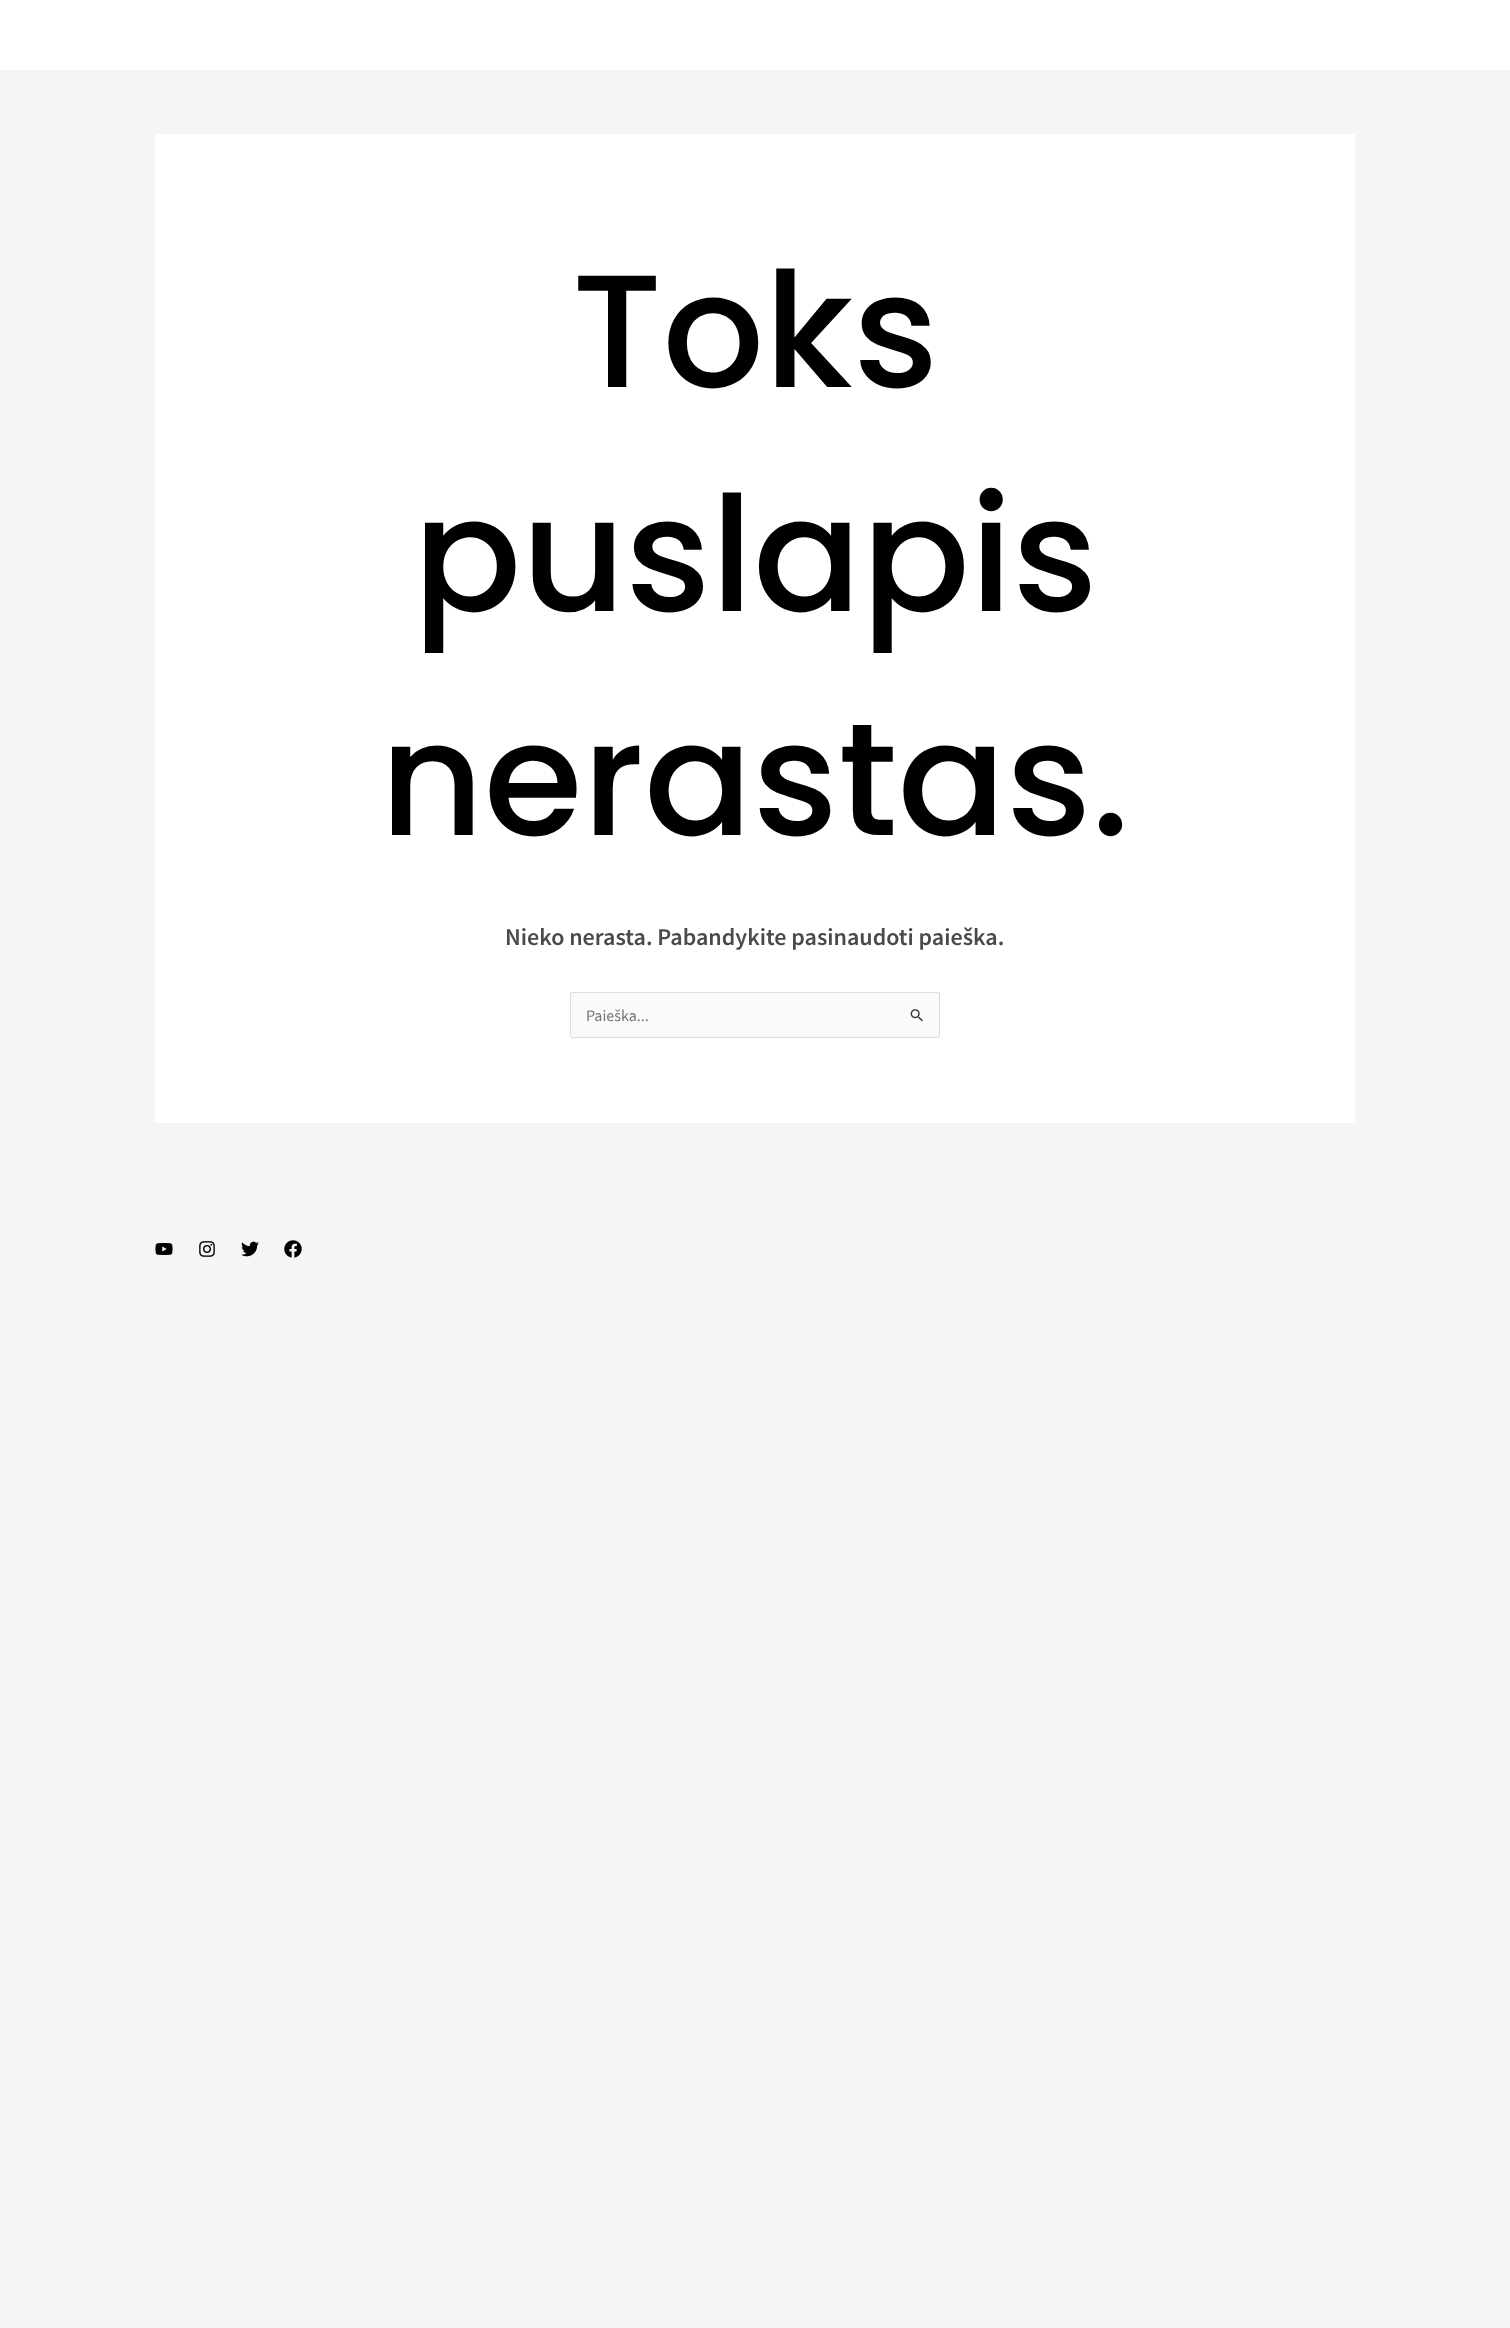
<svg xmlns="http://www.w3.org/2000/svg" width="1510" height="2328">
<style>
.a{font:500 160px Poppins;fill:#000}
.b{font:600 24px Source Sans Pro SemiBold;fill:#4a4a4a}
.c{font:16px Source Sans Pro;fill:#757575}
</style>
<rect width="100%" height="100%" fill="#f5f5f5"/>
<path fill="#fff" d="M0 0h1510v70H0z"/>
<path fill="#fff" d="M155 134h1200v989H155z"/>
<rect fill="#fafafa" stroke="#ddd" x="570.5" y="992.5" width="369" height="45" rx="1.5"/>
<image href="1.png" x="910" y="1009" width="13" height="13"/>
<image href="2.png" x="155" y="1243" width="18" height="12"/>
<image href="3.png" x="199" y="1241" width="16" height="16"/>
<image href="4.png" x="241" y="1241" width="18" height="16"/>
<image href="5.png" x="284" y="1240" width="18" height="18"/>
<text class="a" x="572" y="387">Toks</text>
<text class="a" x="413" y="611">puslapis</text>
<text class="a" x="380" y="835">nerastas.</text>
<text class="b" x="505" y="945">Nieko nerasta. Pabandykite pasinaudoti paieška.</text>
<text class="c" x="586" y="1021">Paieška...</text>
</svg>
